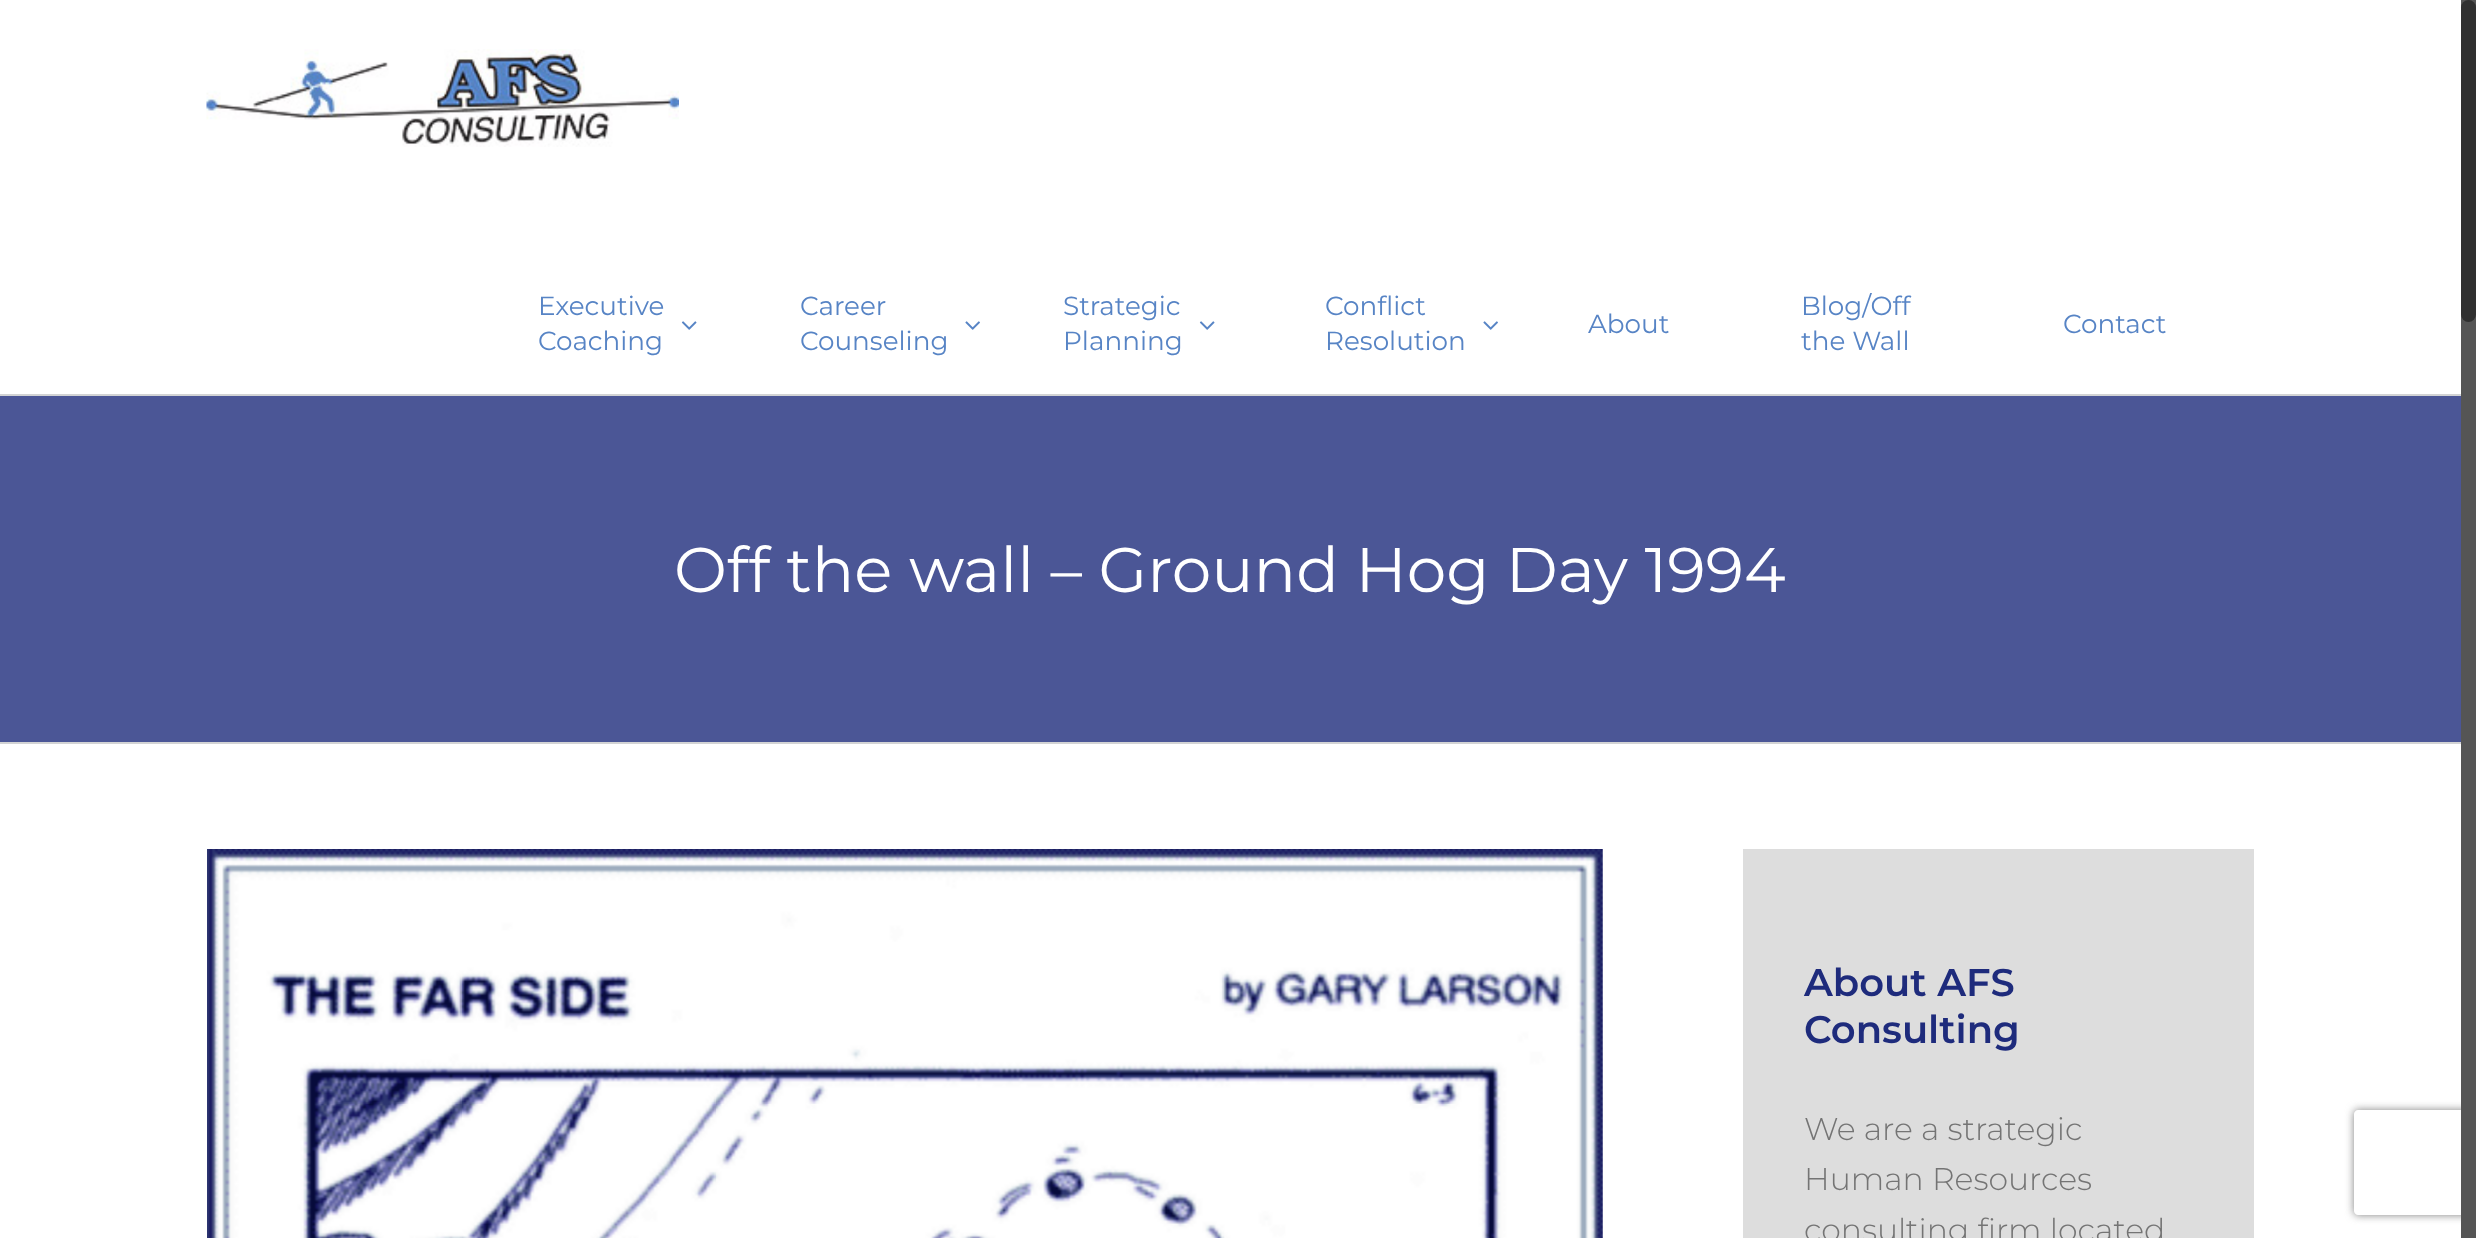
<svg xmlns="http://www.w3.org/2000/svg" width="2476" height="1238">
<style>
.a{font:26.25px Montserrat;fill:#5784c5}
.b{font:63px Montserrat;fill:#fff}
.c{font:600 38.5px Montserrat;fill:#1e2b7c}
.d{font:300 31.5px Montserrat;fill:#747474}
</style>
<defs>
<clipPath id="clip1"><path d="M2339 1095h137v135h-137zm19 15h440c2 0 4 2 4 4v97c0 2-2 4-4 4h-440c-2 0-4-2-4-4v-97c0-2 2-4 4-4z" clip-rule="evenodd"/></clipPath>
</defs>
<rect width="100%" height="100%" fill="#fff"/>
<image href="1.png" x="206" y="49" width="473" height="98"/>
<image href="2.png" x="681" y="321" width="16" height="9"/>
<image href="3.png" x="965" y="321" width="15" height="9"/>
<image href="2.png" x="1199" y="321" width="16" height="9"/>
<image href="3.png" x="1483" y="321" width="15" height="9"/>
<path fill="#4b5696" d="M0 396h2461v346H0z"/>
<path fill="#d2d3d4" d="M0 394h2461v2H0z"/>
<path fill="#d2d3d4" d="M0 742h2461v2H0z"/>
<image href="4.png" x="207" y="849" width="1396" height="389"/>
<path fill="#ddd" d="M1743 849h511v389H1743z"/>
<g clip-path="url(#clip1)">
<rect fill="#808080" filter="blur(4.5px)" x="2354" y="1110" width="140" height="105" rx="4"/>
</g>
<path fill="#555" d="M2461 0h15v1238H2461z"/>
<rect fill="#303030" x="2461" width="15" height="322" rx="7.5"/>
<text class="a" x="538" y="315">Executive</text>
<text class="a" x="538" y="350">Coaching</text>
<text class="a" x="800" y="315">Career</text>
<text class="a" x="800" y="350">Counseling</text>
<text class="a" x="1063" y="315">Strategic</text>
<text class="a" x="1063" y="350">Planning</text>
<text class="a" x="1325" y="315">Conflict</text>
<text class="a" x="1325" y="350">Resolution</text>
<text class="a" x="1588" y="333">About</text>
<text class="a" x="1801" y="315">Blog/Off</text>
<text class="a" x="1801" y="350">the Wall</text>
<text class="a" x="2063" y="333">Contact</text>
<text class="b" x="674" y="592">Off the wall – Ground Hog Day 1994</text>
<text class="c" x="1804" y="996">About AFS</text>
<text class="c" x="1804" y="1043">Consulting</text>
<text class="d" x="1804" y="1140">We are a strategic</text>
<text class="d" x="1804" y="1190">Human Resources</text>
<text class="d" x="1804" y="1241">consulting firm located</text>
</svg>
